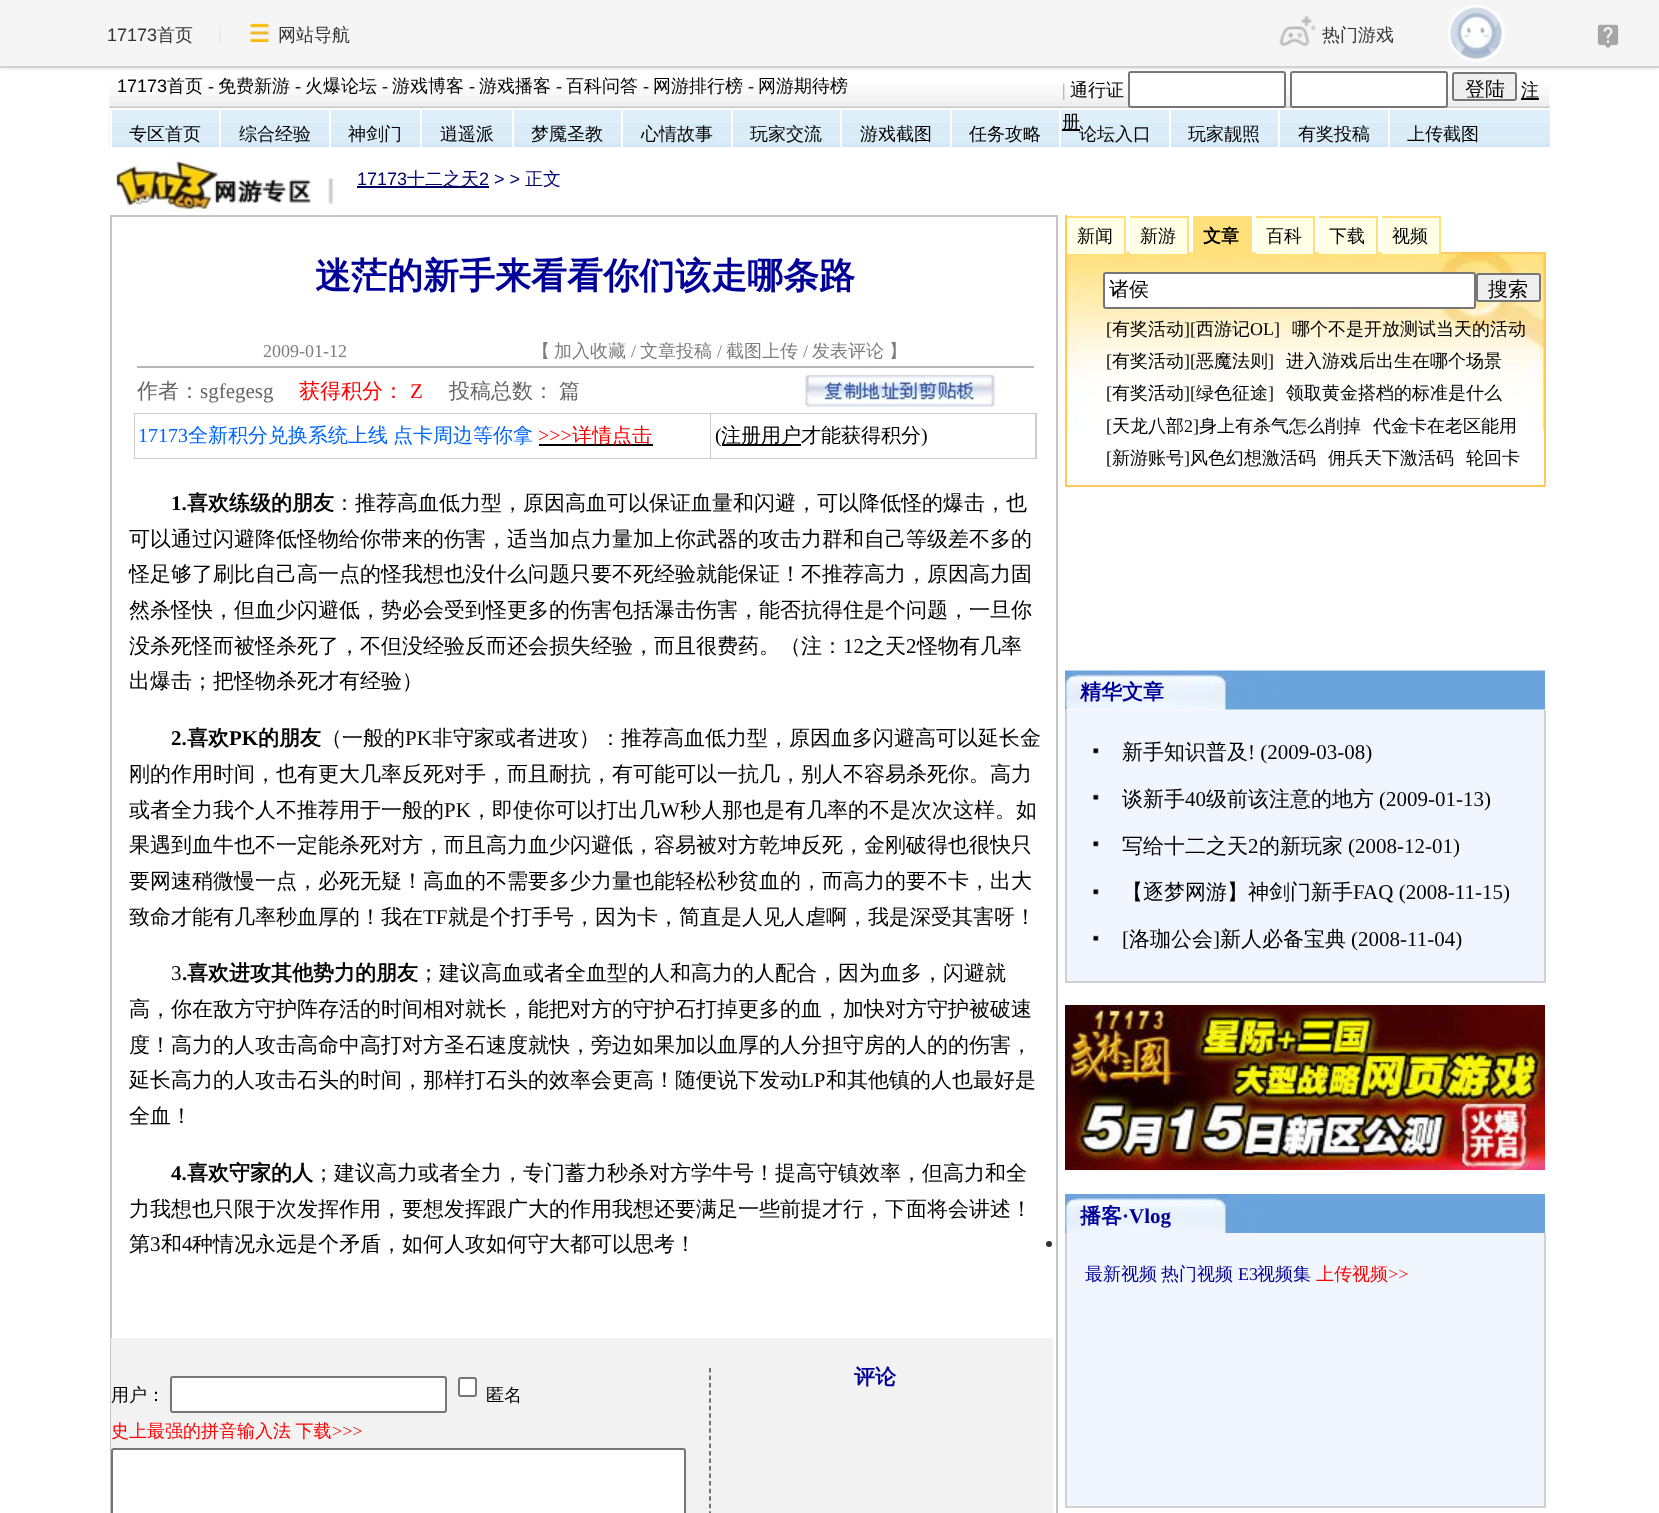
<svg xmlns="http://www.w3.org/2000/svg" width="1659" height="1513">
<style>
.a{font:18px Liberation Sans;fill:#333}
.b{font:500 18px WenQuanYi Zen Hei;fill:#333}
.c{font:18px Liberation Sans;fill:#000}
.d{font:500 18px WenQuanYi Zen Hei;fill:#000}
.e{font:18px Liberation Serif;fill:#000}
.f{font:18px Liberation Serif;fill:#9d9d9d}
.g{font:500 20px WenQuanYi Zen Hei;fill:#000}
.h{font:18px Liberation Sans;fill:#006}
.i{font:500 18px WenQuanYi Zen Hei;fill:#006}
.j{font:bold 36px WenQuanYi Zen Hei;fill:#009}
.k{font:18px Liberation Serif;fill:#7d7d7d}
.l{font:500 18px WenQuanYi Zen Hei;fill:#7d7d7d}
.m{font:500 21px WenQuanYi Zen Hei;fill:#666}
.n{font:21px Liberation Serif;fill:#666}
.o{font:500 21px WenQuanYi Zen Hei;fill:#f00}
.p{font:21px Liberation Serif;fill:#f00}
.q{font:20px Liberation Serif;fill:#06f}
.r{font:500 20px WenQuanYi Zen Hei;fill:#06f}
.s{font:20px Liberation Serif;fill:#f00}
.t{font:500 20px WenQuanYi Zen Hei;fill:#f00}
.u{font:20px Liberation Serif;fill:#000}
.v{font:bold 21px Liberation Serif;fill:#000}
.w{font:bold 21px WenQuanYi Zen Hei;fill:#000}
.x{font:500 21px WenQuanYi Zen Hei;fill:#000}
.y{font:21px Liberation Serif;fill:#000}
.z{font:bold 21px WenQuanYi Zen Hei;fill:#009}
.a1{font:500 18px WenQuanYi Zen Hei;fill:#f00}
.b1{font:18px Liberation Serif;fill:#f00}
.c1{font:bold 18px WenQuanYi Zen Hei;fill:#000}
.d1{font:bold 21px Liberation Serif;fill:#009}
.e1{font:500 18px WenQuanYi Zen Hei;fill:#009}
.f1{font:18px Liberation Serif;fill:#009}
</style>
<defs>
<clipPath id="clip1"><path d="M1455 75h59v23H1455z"/></clipPath>
</defs>
<rect width="100%" height="100%" fill="#fff"/>
<image href="6.png" x="109" y="85" width="1441" height="23"/>
<rect fill="#fff" stroke="#767676" stroke-width="2" x="1129" y="72" width="156" height="35" rx="2"/>
<rect fill="#fff" stroke="#767676" stroke-width="2" x="1291" y="72" width="156" height="35" rx="2"/>
<rect fill="#efefef" stroke="#767676" stroke-width="2" x="1453" y="73" width="63" height="27" rx="2"/>
<path fill="#e8e6e6" filter="blur(1.5px)" d="M0 2h1659v67H0z"/>
<path fill="#f5f5f5" d="M0 0h1659v66H0z"/>
<path fill="#d2d2d2" d="M0 66h1659v2H0z"/>
<image href="1.png" x="219" y="25" width="2" height="19"/>
<image href="2.png" x="250" y="23" width="19" height="19"/>
<image href="3.png" x="1279" y="16" width="37" height="31"/>
<circle fill="none" stroke="#fff" stroke-width="3" cx="1476.5" cy="33.5" r="27"/>
<image href="4.png" x="1450" y="7" width="52" height="52"/>
<image href="5.png" x="1597" y="24" width="22" height="25"/>
<path fill="#000" d="M1521 98h18v2H1521z"/>
<image href="7.png" x="109" y="109" width="1441" height="40"/>
<path fill="#000" d="M1062 129h18v2H1062z"/>
<path fill="#fff" d="M110 109h1441v1H110z"/>
<path fill="#fff" d="M110 147h1441v2H110z"/>
<path fill="#fff" d="M110 110h2v45H110z"/>
<path fill="#fff" d="M219 110h2v45H219z"/>
<path fill="#fff" d="M329 110h2v45H329z"/>
<path fill="#fff" d="M420 110h2v45H420z"/>
<path fill="#fff" d="M512 110h2v45H512z"/>
<path fill="#fff" d="M621 110h2v45H621z"/>
<path fill="#fff" d="M731 110h2v45H731z"/>
<path fill="#fff" d="M840 110h2v45H840z"/>
<path fill="#fff" d="M950 110h2v45H950z"/>
<path fill="#fff" d="M1059 110h2v45H1059z"/>
<path fill="#fff" d="M1169 110h2v45H1169z"/>
<path fill="#fff" d="M1278 110h2v45H1278z"/>
<path fill="#fff" d="M1388 110h2v45H1388z"/>
<image href="8.png" x="110" y="154" width="224" height="58"/>
<path fill="#006" d="M357 186h132v2H357z"/>
<path fill="none" stroke="#c5c5c5" stroke-width="2" d="M111 216h946v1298H111z"/>
<path fill="#b6b6b6" d="M137 366h897v2H137z"/>
<image href="9.png" x="805" y="375" width="190" height="32"/>
<path fill="#ccc" d="M134 413h903v46H134z"/>
<path fill="#fff" d="M135 414h575v44H135z"/>
<path fill="#000" d="M539 444h114v2H539z"/>
<path fill="#fff" d="M711 414h324v44H711z"/>
<path fill="#000" d="M722 444h79v2H722z"/>
<path fill="#f2f2f2" d="M111 1338h942v175H111z"/>
<path fill="none" stroke="#484848" stroke-width="1.5" stroke-dasharray="4.5 3.04" d="M710 1368v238.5"/>
<rect fill="#fff" stroke="#767676" stroke-width="2" x="171" y="1377" width="275" height="35" rx="2"/>
<rect fill="#fff" stroke="#767676" stroke-width="2" x="459" y="1378" width="17" height="18" rx="2"/>
<rect fill="#fff" stroke="#767676" stroke-width="2" x="112" y="1449" width="573" height="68" rx="2"/>
<path fill="#ffc857" d="M1065 215h2v37H1065z"/>
<image href="10.png" x="1067" y="252" width="477" height="179"/>
<path fill="#ffffe5" d="M1067 218h57v36H1067z"/>
<path fill="#ffe07b" d="M1067 216h58v2H1067z"/>
<path fill="#ffe07b" d="M1124 216h2v38H1124z"/>
<path fill="#ffffe5" d="M1130 218h57v36H1130z"/>
<path fill="#ffe07b" d="M1130 216h58v2H1130z"/>
<path fill="#ffe07b" d="M1187 216h2v38H1187z"/>
<path fill="#ffe07b" d="M1193 216h57v38H1193z"/>
<path fill="#ffe07b" d="M1250 216h2v39H1250z"/>
<path fill="#ffe07b" d="M1193 254h58v2H1193z"/>
<path fill="#ffffe5" d="M1256 218h57v36H1256z"/>
<path fill="#ffe07b" d="M1256 216h58v2H1256z"/>
<path fill="#ffe07b" d="M1313 216h2v38H1313z"/>
<path fill="#ffffe5" d="M1319 218h57v36H1319z"/>
<path fill="#ffe07b" d="M1319 216h58v2H1319z"/>
<path fill="#ffe07b" d="M1376 216h2v38H1376z"/>
<path fill="#ffffe5" d="M1382 218h57v36H1382z"/>
<path fill="#ffe07b" d="M1382 216h58v2H1382z"/>
<path fill="#ffe07b" d="M1439 216h2v38H1439z"/>
<path fill="#ffc857" d="M1544 252h2v234H1544z"/>
<path fill="#ffc857" d="M1065 485h480v2H1065z"/>
<path fill="#ffc857" d="M1065 252h2v234H1065z"/>
<rect fill="#fff" stroke="#767676" stroke-width="2" x="1104" y="273" width="371" height="35" rx="2"/>
<rect fill="#efefef" stroke="#767676" stroke-width="2" x="1477" y="274" width="63" height="27" rx="2"/>
<image href="11.png" x="1065" y="670" width="480" height="40"/>
<path fill="#f1f5fd" d="M1067 710h477v271H1067z"/>
<path fill="#d1d1d1" d="M1544 710h2v273H1544z"/>
<path fill="#d1d1d1" d="M1065 981h480v2H1065z"/>
<path fill="#d1d1d1" d="M1065 710h2v273H1065z"/>
<image href="12.png" x="1093" y="748" width="6" height="6"/>
<image href="13.png" x="1093" y="794" width="6" height="6"/>
<image href="12.png" x="1093" y="841" width="6" height="6"/>
<image href="12.png" x="1093" y="889" width="6" height="6"/>
<image href="13.png" x="1093" y="935" width="6" height="6"/>
<image href="14.png" x="1065" y="1005" width="480" height="165"/>
<image href="15.png" x="1065" y="1194" width="480" height="39"/>
<path fill="#f1f5fd" d="M1067 1233h477v273H1067z"/>
<path fill="#d1d1d1" d="M1544 1233h2v275H1544z"/>
<path fill="#d1d1d1" d="M1065 1506h480v2H1065z"/>
<path fill="#d1d1d1" d="M1065 1233h2v275H1065z"/>
<circle fill="#333" cx="1049" cy="1244" r="3"/>
<text class="a" x="107" y="41">17173</text>
<text class="b" x="157" y="41">首页</text>
<text class="b" x="278" y="41">网站导航</text>
<text class="b" x="1322" y="41">热门游戏</text>
<text class="c" x="117" y="92">17173</text>
<text class="d" x="167" y="92">首页</text>
<text class="e" x="208" y="92">-</text>
<text class="d" x="218" y="92">免费新游</text>
<text class="e" x="295" y="92">-</text>
<text class="d" x="305" y="92">火爆论坛</text>
<text class="e" x="382" y="92">-</text>
<text class="d" x="392" y="92">游戏博客</text>
<text class="e" x="469" y="92">-</text>
<text class="d" x="479" y="92">游戏播客</text>
<text class="e" x="556" y="92">-</text>
<text class="d" x="566" y="92">百科问答</text>
<text class="e" x="643" y="92">-</text>
<text class="d" x="653" y="92">网游排行榜</text>
<text class="e" x="748" y="92">-</text>
<text class="d" x="758" y="92">网游期待榜</text>
<text class="f" x="1062" y="96">|</text>
<text class="d" x="1070" y="96">通行证</text>
<g clip-path="url(#clip1)">
<text class="g" x="1465" y="96">登陆</text>
</g>
<text class="d" x="1521" y="96">注</text>
<text class="d" x="1062" y="128">册</text>
<text class="d" x="129" y="140">专区首页</text>
<text class="d" x="239" y="140">综合经验</text>
<text class="d" x="348" y="140">神剑门</text>
<text class="d" x="440" y="140">逍遥派</text>
<text class="d" x="531" y="140">梦魇圣教</text>
<text class="d" x="641" y="140">心情故事</text>
<text class="d" x="750" y="140">玩家交流</text>
<text class="d" x="860" y="140">游戏截图</text>
<text class="d" x="969" y="140">任务攻略</text>
<text class="d" x="1079" y="140">论坛入口</text>
<text class="d" x="1188" y="140">玩家靓照</text>
<text class="d" x="1298" y="140">有奖投稿</text>
<text class="d" x="1407" y="140">上传截图</text>
<text class="h" x="357" y="185">17173</text>
<text class="i" x="407" y="185">十二之天</text>
<text class="h" x="479" y="185">2 &gt; &gt;</text>
<text class="i" x="525" y="185">正文</text>
<text class="j" x="315" y="288">迷茫的新手来看看你们该走哪条路</text>
<text class="k" x="263" y="357">2009-01-12</text>
<text class="l" x="532" y="357">【</text>
<text class="l" x="554" y="357">加入收藏</text>
<text class="k" x="631" y="357">/</text>
<text class="l" x="640" y="357">文章投稿</text>
<text class="k" x="717" y="357">/</text>
<text class="l" x="726" y="357">截图上传</text>
<text class="k" x="803" y="357">/</text>
<text class="l" x="812" y="357">发表评论</text>
<text class="l" x="889" y="357">】</text>
<text class="m" x="137" y="398">作者：</text>
<text class="n" x="200" y="398">sgfegesg</text>
<text class="o" x="299" y="398">获得积分：</text>
<text class="p" x="410" y="398">Z</text>
<text class="m" x="449" y="398">投稿总数：</text>
<text class="m" x="559" y="398">篇</text>
<text class="q" x="138" y="442">17173</text>
<text class="r" x="188" y="442" word-spacing="-1">全新积分兑换系统上线 点卡周边等你拿</text>
<text class="s" x="538" y="442">&gt;&gt;&gt;</text>
<text class="t" x="572" y="442">详情点击</text>
<text class="u" x="715" y="442">(</text>
<text class="g" x="721" y="442">注册用户才能获得积分</text>
<text class="u" x="921" y="442">)</text>
<text class="v" x="171" y="510">1.</text>
<text class="w" x="187" y="510">喜欢练级的朋友</text>
<text class="x" x="334" y="510">：推荐高血低力型，原因高血可以保证血量和闪避，可以降低怪的爆击，也</text>
<text class="x" x="129" y="546">可以通过闪避降低怪物给你带来的伤害，适当加点力量加上你武器的攻击力群和自己等级差不多的</text>
<text class="x" x="129" y="581">怪足够了刷比自己高一点的怪我想也没什么问题只要不死经验就能保证！不推荐高力，原因高力固</text>
<text class="x" x="129" y="617">然杀怪快，但血少闪避低，势必会受到怪更多的伤害包括瀑击伤害，能否抗得住是个问题，一旦你</text>
<text class="x" x="129" y="653">没杀死怪而被怪杀死了，不但没经验反而还会损失经验，而且很费药。（注：</text>
<text class="y" x="843" y="653">12</text>
<text class="x" x="864" y="653">之天</text>
<text class="y" x="906" y="653">2</text>
<text class="x" x="917" y="653">怪物有几率</text>
<text class="x" x="129" y="688">出爆击；把怪物杀死才有经验）</text>
<text class="v" x="171" y="745">2.</text>
<text class="w" x="187" y="745">喜欢</text>
<text class="v" x="229" y="745">PK</text>
<text class="w" x="258" y="745">的朋友</text>
<text class="x" x="321" y="745">（一般的</text>
<text class="y" x="405" y="745">PK</text>
<text class="x" x="432" y="745">非守家或者进攻）：推荐高血低力型，原因血多闪避高可以延长金</text>
<text class="x" x="129" y="781">刚的作用时间，也有更大几率反死对手，而且耐抗，有可能可以一抗几，别人不容易杀死你。高力</text>
<text class="x" x="129" y="817">或者全力我个人不推荐用于一般的</text>
<text class="y" x="444" y="817">PK</text>
<text class="x" x="471" y="817">，即使你可以打出几</text>
<text class="y" x="660" y="817">W</text>
<text class="x" x="680" y="817">秒人那也是有几率的不是次次这样。如</text>
<text class="x" x="129" y="852">果遇到血牛也不一定能杀死对方，而且高力血少闪避低，容易被对方乾坤反死，金刚破得也很快只</text>
<text class="x" x="129" y="888">要网速稍微慢一点，必死无疑！高血的不需要多少力量也能轻松秒贫血的，而高力的要不卡，出大</text>
<text class="x" x="129" y="924">致命才能有几率秒血厚的！我在</text>
<text class="y" x="423" y="924">TF</text>
<text class="x" x="448" y="924">就是个打手号，因为卡，简直是人见人虐啊，我是深受其害呀！</text>
<text class="y" x="171" y="980">3</text>
<text class="v" x="182" y="980">.</text>
<text class="w" x="187" y="980">喜欢进攻其他势力的朋友</text>
<text class="x" x="418" y="980">；建议高血或者全血型的人和高力的人配合，因为血多，闪避就</text>
<text class="x" x="129" y="1016">高，你在敌方守护阵存活的时间相对就长，能把对方的守护石打掉更多的血，加快对方守护被破速</text>
<text class="x" x="129" y="1052">度！高力的人攻击高命中高打对方圣石速度就快，旁边如果加以血厚的人分担守房的人的的伤害，</text>
<text class="x" x="129" y="1087">延长高力的人攻击石头的时间，那样打石头的效率会更高！随便说下发动</text>
<text class="y" x="801" y="1087">LP</text>
<text class="x" x="826" y="1087">和其他镇的人也最好是</text>
<text class="x" x="129" y="1123">全血！</text>
<text class="v" x="171" y="1180">4.</text>
<text class="w" x="187" y="1180">喜欢守家的人</text>
<text class="x" x="313" y="1180">；建议高力或者全力，专门蓄力秒杀对方学牛号！提高守镇效率，但高力和全</text>
<text class="x" x="129" y="1216">力我想也只限于次发挥作用，要想发挥跟广大的作用我想还要满足一些前提才行，下面将会讲述！</text>
<text class="x" x="129" y="1251">第</text>
<text class="y" x="150" y="1251">3</text>
<text class="x" x="161" y="1251">和</text>
<text class="y" x="182" y="1251">4</text>
<text class="x" x="192" y="1251">种情况永远是个矛盾，如何人攻如何守大都可以思考！</text>
<text class="z" x="854" y="1384">评论</text>
<text class="d" x="111" y="1401">用户：</text>
<text class="d" x="486" y="1401">匿名</text>
<text class="a1" x="111" y="1437" word-spacing="-1">史上最强的拼音输入法 下载</text>
<text class="b1" x="332" y="1437">&gt;&gt;&gt;</text>
<text class="d" x="1077" y="242">新闻</text>
<text class="d" x="1140" y="242">新游</text>
<text class="c1" x="1203" y="242">文章</text>
<text class="d" x="1266" y="242">百科</text>
<text class="d" x="1329" y="242">下载</text>
<text class="d" x="1392" y="242">视频</text>
<text class="g" x="1109" y="296">诸侯</text>
<text class="g" x="1488" y="296">搜索</text>
<text class="e" x="1106" y="335">[</text>
<text class="d" x="1112" y="335">有奖活动</text>
<text class="e" x="1184" y="335">][</text>
<text class="d" x="1196" y="335">西游记</text>
<text class="e" x="1250" y="335">OL]</text>
<text class="d" x="1292" y="335">哪个不是开放测试当天的活动</text>
<text class="e" x="1106" y="367">[</text>
<text class="d" x="1112" y="367">有奖活动</text>
<text class="e" x="1184" y="367">][</text>
<text class="d" x="1196" y="367">恶魔法则</text>
<text class="e" x="1268" y="367">]</text>
<text class="d" x="1286" y="367">进入游戏后出生在哪个场景</text>
<text class="e" x="1106" y="399">[</text>
<text class="d" x="1112" y="399">有奖活动</text>
<text class="e" x="1184" y="399">][</text>
<text class="d" x="1196" y="399">绿色征途</text>
<text class="e" x="1268" y="399">]</text>
<text class="d" x="1286" y="399">领取黄金搭档的标准是什么</text>
<text class="e" x="1106" y="432">[</text>
<text class="d" x="1112" y="432">天龙八部</text>
<text class="e" x="1184" y="432">2]</text>
<text class="d" x="1199" y="432">身上有杀气怎么削掉</text>
<text class="d" x="1373" y="432">代金卡在老区能用</text>
<text class="e" x="1106" y="464">[</text>
<text class="d" x="1112" y="464">新游账号</text>
<text class="e" x="1184" y="464">]</text>
<text class="d" x="1190" y="464">风色幻想激活码</text>
<text class="d" x="1328" y="464">佣兵天下激活码</text>
<text class="d" x="1466" y="464">轮回卡</text>
<text class="z" x="1080" y="699">精华文章</text>
<text class="x" x="1122" y="759">新手知识普及</text>
<text class="y" x="1248" y="759">! (2009-03-08)</text>
<text class="x" x="1122" y="806">谈新手</text>
<text class="y" x="1185" y="806">40</text>
<text class="x" x="1206" y="806">级前该注意的地方</text>
<text class="y" x="1379" y="806">(2009-01-13)</text>
<text class="x" x="1122" y="853">写给十二之天</text>
<text class="y" x="1248" y="853">2</text>
<text class="x" x="1259" y="853">的新玩家</text>
<text class="y" x="1348" y="853">(2008-12-01)</text>
<text class="x" x="1122" y="899">【逐梦网游】神剑门新手</text>
<text class="y" x="1353" y="899">FAQ (2008-11-15)</text>
<text class="y" x="1122" y="946">[</text>
<text class="x" x="1129" y="946">洛珈公会</text>
<text class="y" x="1213" y="946">]</text>
<text class="x" x="1220" y="946">新人必备宝典</text>
<text class="y" x="1351" y="946">(2008-11-04)</text>
<text class="z" x="1080" y="1223">播客</text>
<text class="d1" x="1122" y="1223">·Vlog</text>
<text class="e1" x="1085" y="1280">最新视频</text>
<text class="e1" x="1161" y="1280">热门视频</text>
<text class="f1" x="1238" y="1280">E3</text>
<text class="e1" x="1257" y="1280">视频集</text>
<text class="a1" x="1316" y="1280">上传视频</text>
<text class="b1" x="1388" y="1280">&gt;&gt;</text>
</svg>
